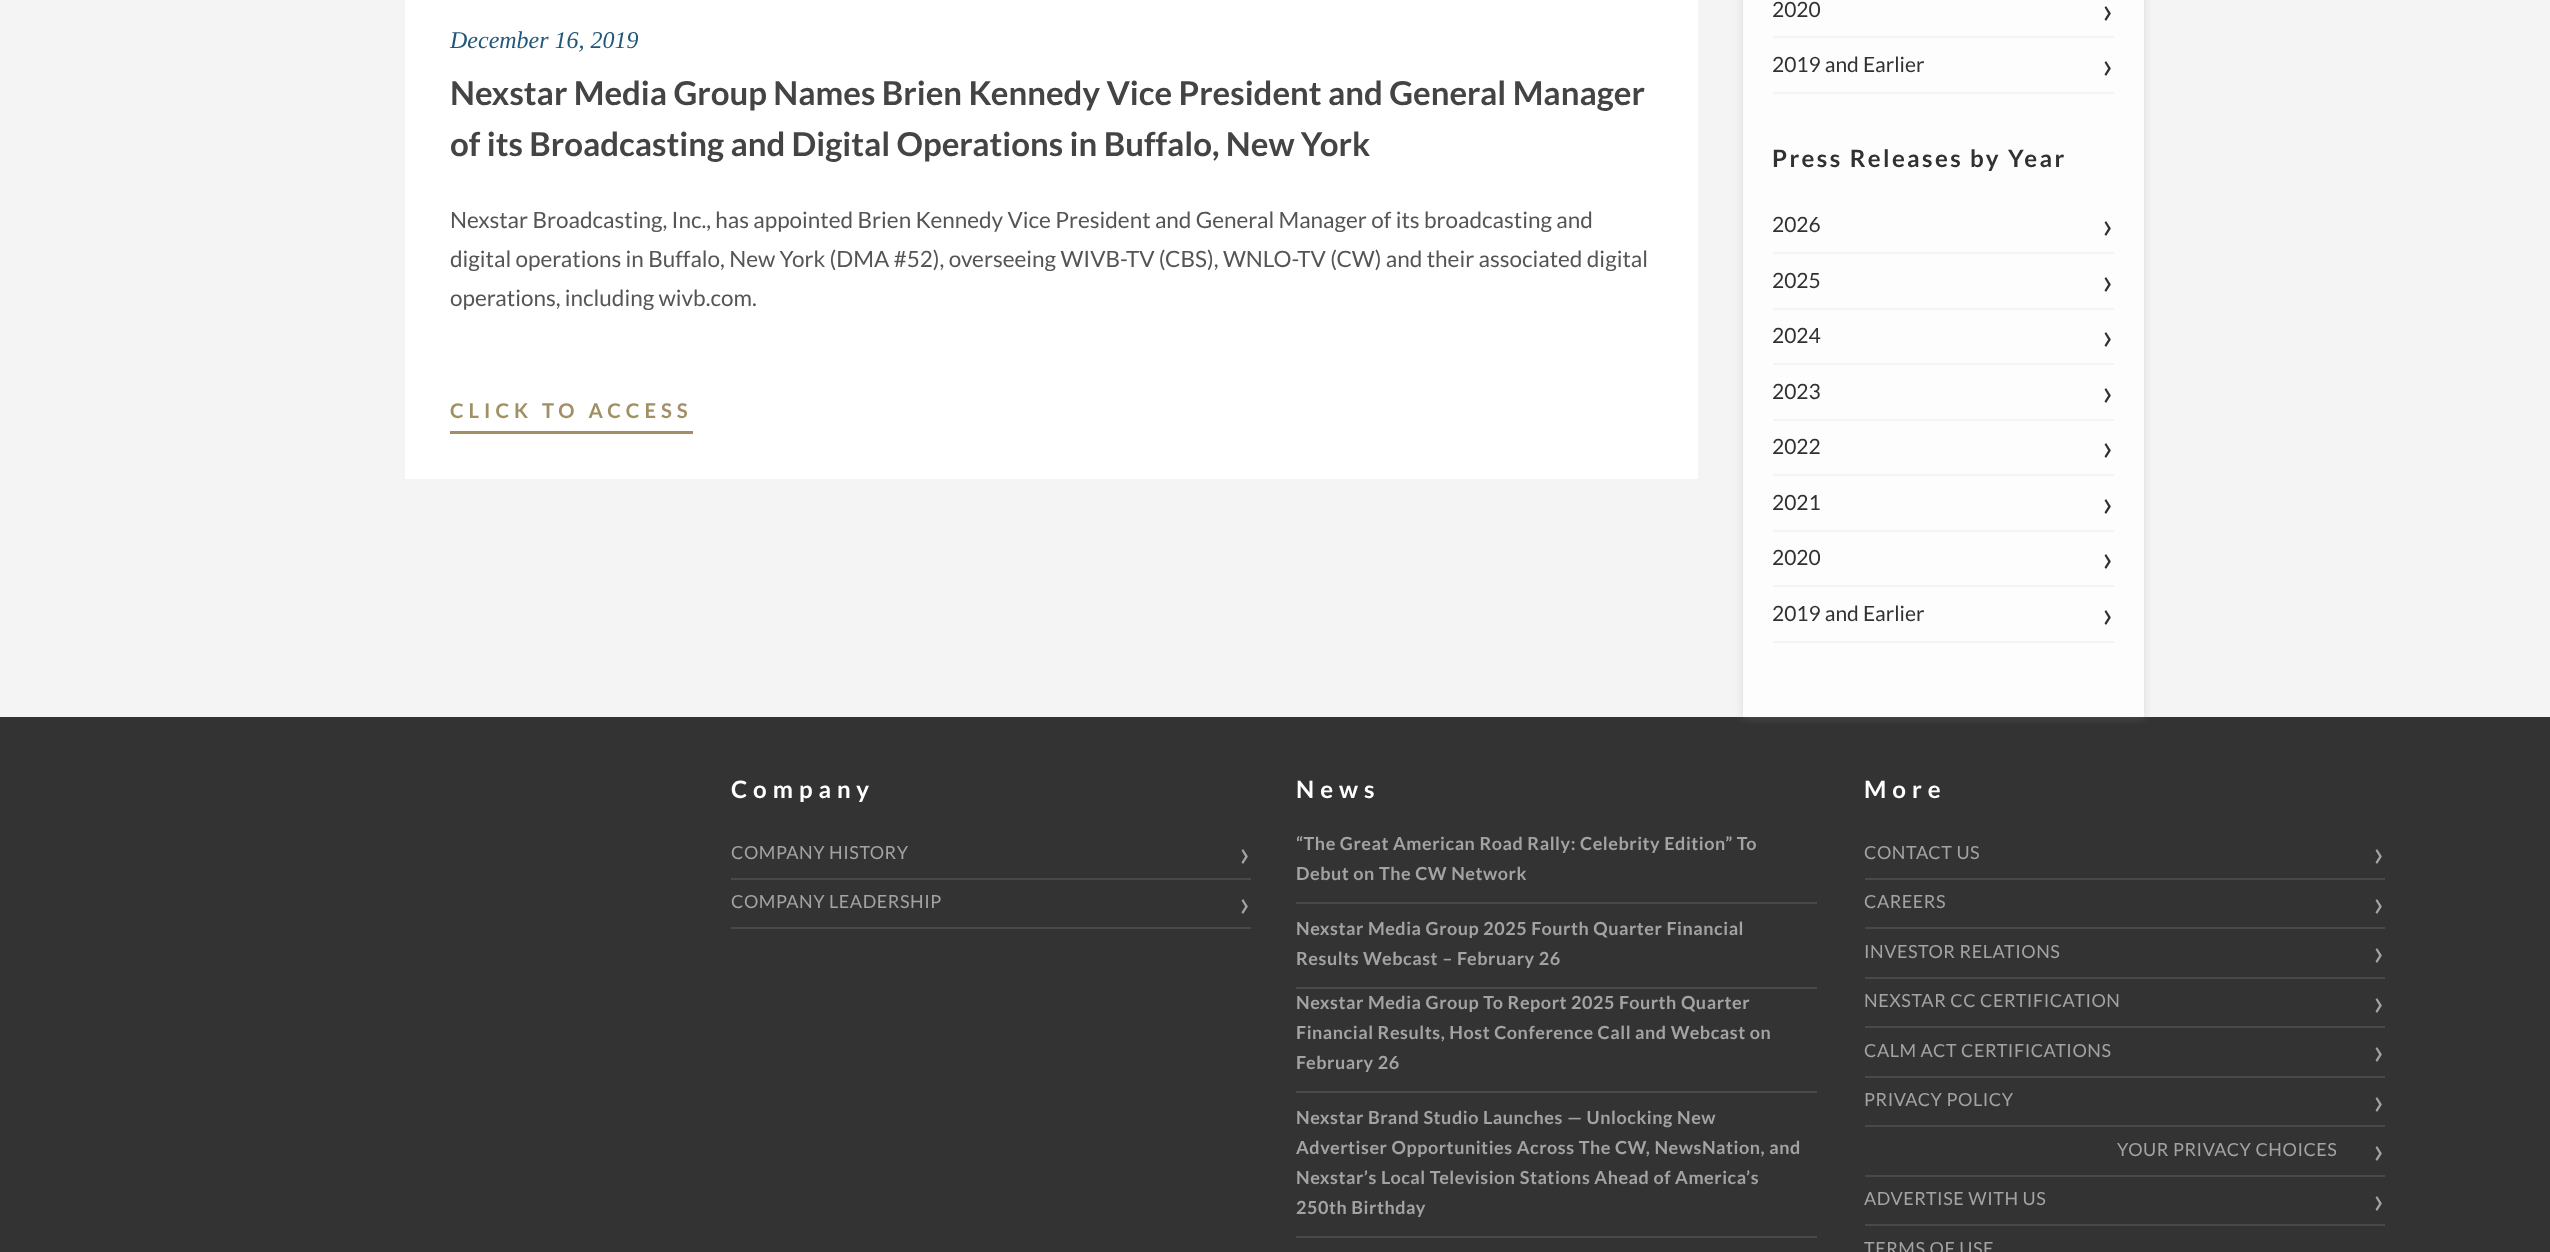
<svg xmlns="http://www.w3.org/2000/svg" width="2550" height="1252">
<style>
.a{font:italic 24px Liberation Serif;fill:#225779}
.b{font:bold 33px Lato;fill:#444}
.c{font:22.5px Lato;fill:#555}
.d{font:bold 20.25px Lato;letter-spacing:5px;fill:#a19065}
.e{font:21px Lato;fill:#313131}
.f{font:36px Lato;fill:#313131}
.g{font:bold 24px Lato;letter-spacing:2.4px;fill:#313131}
.h{font:bold 24px Lato;letter-spacing:6px;fill:#fff}
.i{font:18px Lato;letter-spacing:0.55px;fill:#a3a3a3}
.j{font:36px Lato;letter-spacing:0.55px;fill:#a3a3a3}
.k{font:bold 18px Lato;letter-spacing:0.55px;fill:#a3a3a3}
</style>
<rect width="100%" height="100%" fill="#f4f4f4"/>
<path fill="#fff" d="M405 0h1293v479H405z"/>
<path fill="#a19065" d="M450 431h243v3H450z"/>
<path fill="#333" d="M0 717h2550v535H0z"/>
<path fill="#a6a6a652" filter="blur(5px)" d="M1743 -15h401v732H1743z"/>
<path fill="#fdfdfd" d="M1743 0h401v717H1743z"/>
<path fill="#f4f4f4" d="M1773 36h341v2H1773z"/>
<path fill="#f4f4f4" d="M1773 92h341v2H1773z"/>
<path fill="#f4f4f4" d="M1773 252h341v2H1773z"/>
<path fill="#f4f4f4" d="M1773 308h341v2H1773z"/>
<path fill="#f4f4f4" d="M1773 363h341v2H1773z"/>
<path fill="#f4f4f4" d="M1773 419h341v2H1773z"/>
<path fill="#f4f4f4" d="M1773 474h341v2H1773z"/>
<path fill="#f4f4f4" d="M1773 530h341v2H1773z"/>
<path fill="#f4f4f4" d="M1773 585h341v2H1773z"/>
<path fill="#f4f4f4" d="M1773 641h341v2H1773z"/>
<path fill="#494949" d="M731 878h520v2H731z"/>
<path fill="#494949" d="M731 927h520v2H731z"/>
<path fill="#494949" d="M1296 902h521v2H1296z"/>
<path fill="#494949" d="M1296 987h521v2H1296z"/>
<path fill="#494949" d="M1296 1091h521v2H1296z"/>
<path fill="#494949" d="M1296 1236h521v2H1296z"/>
<path fill="#494949" d="M1865 878h520v2H1865z"/>
<path fill="#494949" d="M1865 927h520v2H1865z"/>
<path fill="#494949" d="M1865 977h520v2H1865z"/>
<path fill="#494949" d="M1865 1026h520v2H1865z"/>
<path fill="#494949" d="M1865 1076h520v2H1865z"/>
<path fill="#494949" d="M1865 1125h520v2H1865z"/>
<path fill="#494949" d="M1865 1175h520v2H1865z"/>
<path fill="#494949" d="M1865 1224h520v2H1865z"/>
<text class="a" x="450" y="48">December 16, 2019</text>
<text class="b" x="450" y="105">Nexstar Media Group Names Brien Kennedy Vice President and General Manager</text>
<text class="b" x="450" y="156">of its Broadcasting and Digital Operations in Buffalo, New York</text>
<text class="c" x="450" y="228">Nexstar Broadcasting, Inc., has appointed Brien Kennedy Vice President and General Manager of its broadcasting and</text>
<text class="c" x="450" y="267">digital operations in Buffalo, New York (DMA #52), overseeing WIVB-TV (CBS), WNLO-TV (CW) and their associated digital</text>
<text class="c" x="450" y="306">operations, including wivb.com.</text>
<text class="d" x="450" y="418">CLICK TO ACCESS</text>
<text class="e" x="1772" y="17">2020</text>
<text class="f" x="2102" y="23">›</text>
<text class="e" x="1772" y="72">2019 and Earlier</text>
<text class="f" x="2102" y="78">›</text>
<text class="g" x="1772" y="167">Press Releases by Year</text>
<text class="e" x="1772" y="232">2026</text>
<text class="f" x="2102" y="238">›</text>
<text class="e" x="1772" y="288">2025</text>
<text class="f" x="2102" y="294">›</text>
<text class="e" x="1772" y="343">2024</text>
<text class="f" x="2102" y="349">›</text>
<text class="e" x="1772" y="399">2023</text>
<text class="f" x="2102" y="405">›</text>
<text class="e" x="1772" y="454">2022</text>
<text class="f" x="2102" y="460">›</text>
<text class="e" x="1772" y="510">2021</text>
<text class="f" x="2102" y="516">›</text>
<text class="e" x="1772" y="565">2020</text>
<text class="f" x="2102" y="571">›</text>
<text class="e" x="1772" y="621">2019 and Earlier</text>
<text class="f" x="2102" y="627">›</text>
<text class="h" x="731" y="798">Company</text>
<text class="i" x="731" y="859">COMPANY HISTORY</text>
<text class="j" x="1239" y="866">›</text>
<text class="i" x="731" y="908">COMPANY LEADERSHIP</text>
<text class="j" x="1239" y="916">›</text>
<text class="h" x="1296" y="798">News</text>
<text class="k" x="1296" y="850">“The Great American Road Rally: Celebrity Edition” To</text>
<text class="k" x="1296" y="880">Debut on The CW Network</text>
<text class="k" x="1296" y="935">Nexstar Media Group 2025 Fourth Quarter Financial</text>
<text class="k" x="1296" y="965">Results Webcast – February 26</text>
<text class="k" x="1296" y="1009">Nexstar Media Group To Report 2025 Fourth Quarter</text>
<text class="k" x="1296" y="1039">Financial Results, Host Conference Call and Webcast on</text>
<text class="k" x="1296" y="1069">February 26</text>
<text class="k" x="1296" y="1124">Nexstar Brand Studio Launches — Unlocking New</text>
<text class="k" x="1296" y="1154">Advertiser Opportunities Across The CW, NewsNation, and</text>
<text class="k" x="1296" y="1184">Nexstar’s Local Television Stations Ahead of America’s</text>
<text class="k" x="1296" y="1214">250th Birthday</text>
<text class="h" x="1864" y="798">More</text>
<text class="i" x="1864" y="859">CONTACT US</text>
<text class="j" x="2373" y="866">›</text>
<text class="i" x="1864" y="908">CAREERS</text>
<text class="j" x="2373" y="916">›</text>
<text class="i" x="1864" y="958">INVESTOR RELATIONS</text>
<text class="j" x="2373" y="965">›</text>
<text class="i" x="1864" y="1007">NEXSTAR CC CERTIFICATION</text>
<text class="j" x="2373" y="1015">›</text>
<text class="i" x="1864" y="1057">CALM ACT CERTIFICATIONS</text>
<text class="j" x="2373" y="1064">›</text>
<text class="i" x="1864" y="1106">PRIVACY POLICY</text>
<text class="j" x="2373" y="1114">›</text>
<text class="i" x="2117" y="1156">YOUR PRIVACY CHOICES</text>
<text class="j" x="2373" y="1163">›</text>
<text class="i" x="1864" y="1205">ADVERTISE WITH US</text>
<text class="j" x="2373" y="1213">›</text>
<text class="i" x="1864" y="1255">TERMS OF USE</text>
</svg>
